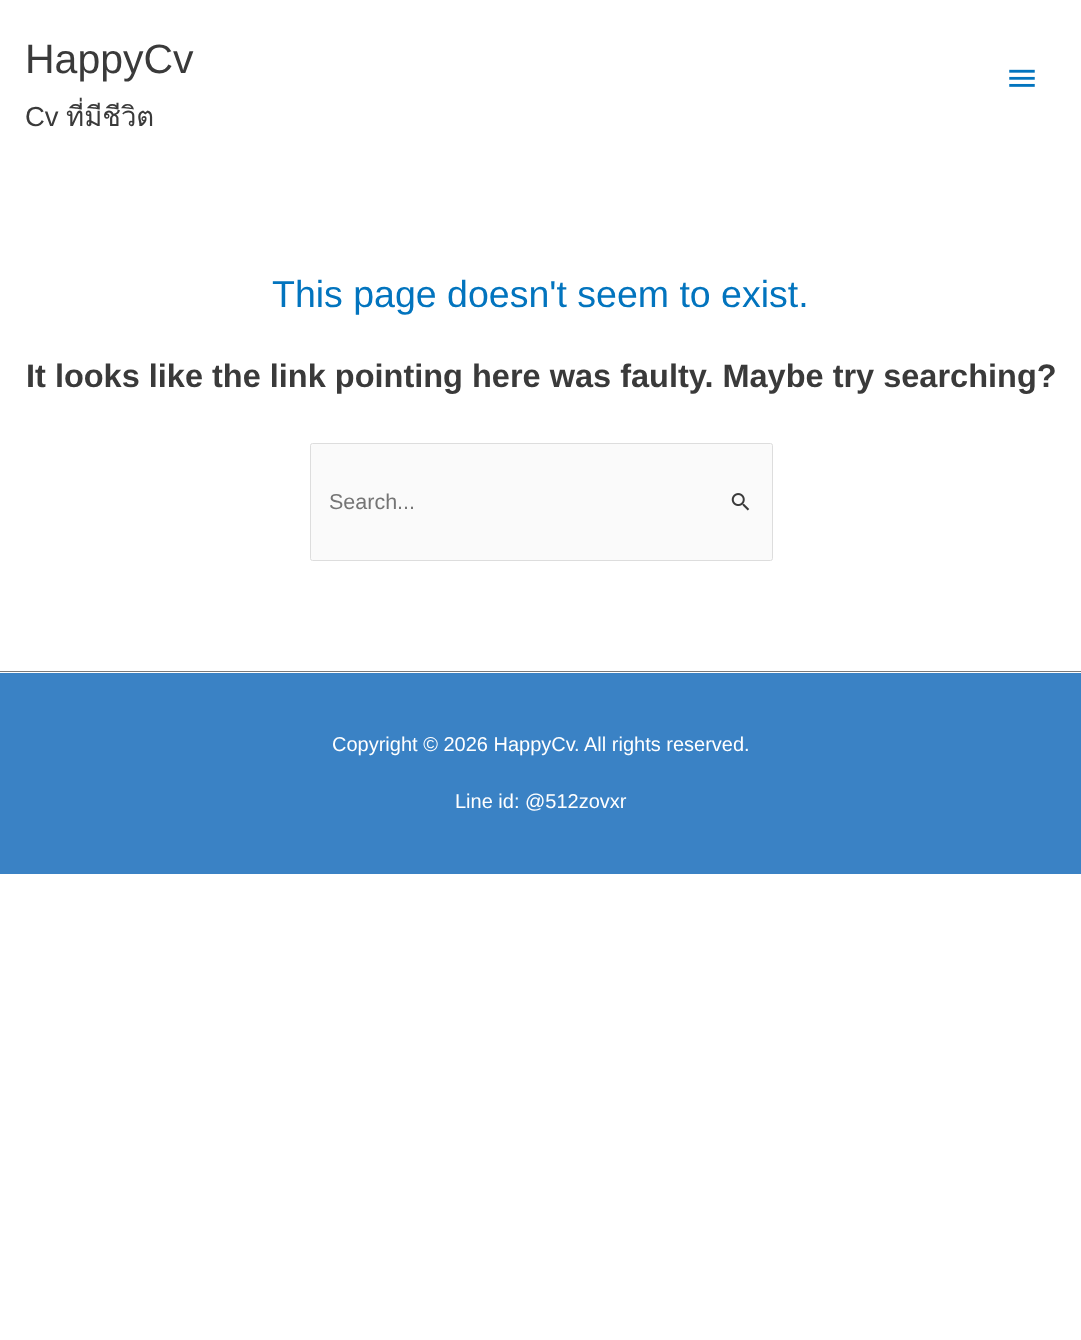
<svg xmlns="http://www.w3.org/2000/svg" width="1081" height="1340">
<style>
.a{font:41px Liberation Sans;fill:#3a3a3a}
.b{font:27.5px Liberation Sans;fill:#3a3a3a}
.c{font:27.5px Loma;fill:#3a3a3a}
.d{font:37.5px Liberation Sans;fill:#0274be}
.e{font:bold 32.5px Liberation Sans;fill:#3a3a3a}
.f{font:21.5px Liberation Sans;fill:#757575}
.g{font:20px Liberation Sans;fill:#fff}
</style>
<rect width="100%" height="100%" fill="#fff"/>
<image href="1.png" x="1009" y="69" width="26" height="18"/>
<rect fill="#fafafa" stroke="#ddd" x="310.5" y="443.5" width="462" height="117" rx="2"/>
<image href="2.png" x="731" y="493" width="19" height="18"/>
<path fill="#7a7a7a" d="M0 671h1081v1H0z"/>
<path fill="#3a82c5" d="M0 673h1081v201H0z"/>
<text class="a" x="25" y="73">HappyCv</text>
<text class="b" x="25" y="126">Cv</text>
<text class="c" x="66" y="126">ที่มีชีวิต</text>
<text class="d" x="272" y="307">This page doesn't seem to exist.</text>
<text class="e" x="26" y="387">It looks like the link pointing here was faulty. Maybe try searching?</text>
<text class="f" x="329" y="509">Search...</text>
<text class="g" x="332" y="751">Copyright © 2026 HappyCv</text>
<text class="g" x="574" y="751">. All rights reserved.</text>
<text class="g" x="455" y="808">Line id: @512zovxr</text>
</svg>
